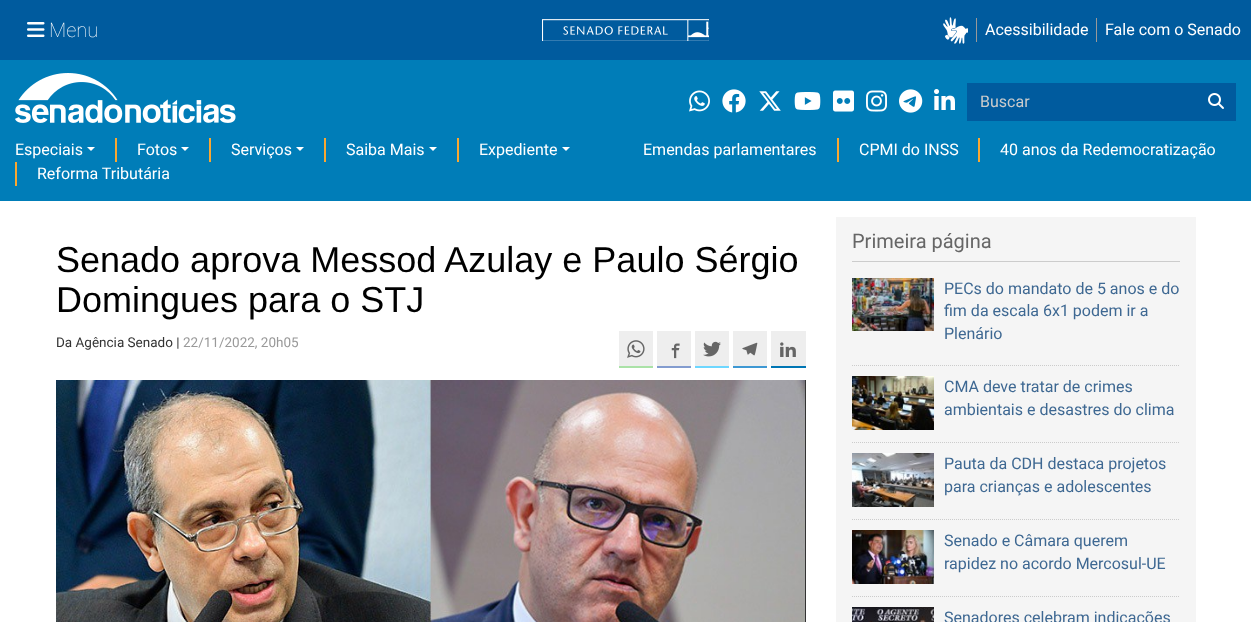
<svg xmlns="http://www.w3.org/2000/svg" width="1251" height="622">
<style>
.a{font:100 20px Roboto;fill:#fff}
.b{font:16px Roboto;fill:#fff}
.c{font:16px Roboto;fill:#ccc}
.d{font:36px Liberation Sans;fill:#000}
.e{font:13.5px Roboto;fill:#333}
.f{font:13.5px Roboto;fill:#999}
.g{font:20px Roboto;fill:#666}
.h{font:16px Roboto;fill:#3e6892}
</style>
<rect width="100%" height="100%" fill="#fff"/>
<path fill="#005b9e" d="M0 0h1251v60H0z"/>
<image href="1.png" x="27" y="22" width="18" height="15"/>
<image href="2.png" x="542" y="19" width="167" height="22"/>
<image href="3.png" x="943" y="17" width="25" height="27"/>
<path fill="#999" d="M976 18h1v24H976z"/>
<path fill="#999" d="M1096 18h1v24H1096z"/>
<path fill="#007db8" d="M0 60h1251v141H0z"/>
<image href="4.png" x="15" y="73" width="221" height="50"/>
<image href="5.png" x="689" y="90" width="21" height="22"/>
<image href="6.png" x="722" y="89" width="24" height="24"/>
<image href="7.png" x="759" y="91" width="22" height="20"/>
<image href="8.png" x="794" y="92" width="27" height="18"/>
<image href="9.png" x="833" y="90" width="21" height="22"/>
<image href="10.png" x="866" y="90" width="21" height="22"/>
<image href="11.png" x="899" y="89" width="24" height="24"/>
<image href="12.png" x="934" y="89" width="21" height="21"/>
<path fill="#005b9e" d="M967 83h269v38H967z"/>
<image href="13.png" x="1208" y="93" width="16" height="16"/>
<path fill="#fff" d="M87 147h8l-4 4z"/>
<path fill="#faa731" d="M115 138h2v24H115z"/>
<path fill="#fff" d="M181 147h8l-4 4z"/>
<path fill="#faa731" d="M209 138h2v24H209z"/>
<path fill="#fff" d="M296 147h8l-4 4z"/>
<path fill="#faa731" d="M324 138h2v24H324z"/>
<path fill="#fff" d="M429 147h8l-4 4z"/>
<path fill="#faa731" d="M457 138h2v24H457z"/>
<path fill="#fff" d="M562 147h8l-4 4z"/>
<path fill="#faa731" d="M837 138h2v24H837z"/>
<path fill="#faa731" d="M978 138h2v24H978z"/>
<path fill="#faa731" d="M15 162h2v24H15z"/>
<path fill="#eee" d="M619 331h34v35H619z"/>
<path fill="#aae2a7" d="M619 366h34v2H619z"/>
<image href="14.png" x="627" y="340" width="18" height="18"/>
<path fill="#eee" d="M657 331h34v35H657z"/>
<path fill="#839ccf" d="M657 366h34v2H657z"/>
<image href="15.png" x="671" y="343" width="9" height="16"/>
<path fill="#eee" d="M695 331h34v35H695z"/>
<path fill="#6ed7ff" d="M695 366h34v2H695z"/>
<image href="16.png" x="703" y="341" width="18" height="16"/>
<path fill="#eee" d="M733 331h34v35H733z"/>
<path fill="#3e98d3" d="M733 366h34v2H733z"/>
<image href="17.png" x="742" y="342" width="16" height="14"/>
<path fill="#eee" d="M771 331h35v35H771z"/>
<path fill="#0076b4" d="M771 366h35v2H771z"/>
<image href="18.png" x="780" y="342" width="16" height="15"/>
<path fill="#333" d="M805 380h1v242H805z"/>
<image href="19.png" x="56" y="380" width="749" height="242"/>
<path fill="#f5f5f5" d="M836 217h360v405H836z"/>
<path fill="#ccc" d="M852 261h328v1H852z"/>
<path fill="none" stroke="#ccc" stroke-dasharray="1 1" d="M852 365.5h328"/>
<image href="20.png" x="852" y="278" width="82" height="53"/>
<path fill="none" stroke="#ccc" stroke-dasharray="1 1" d="M852 442.5h328"/>
<image href="21.png" x="852" y="376" width="82" height="54"/>
<path fill="none" stroke="#ccc" stroke-dasharray="1 1" d="M852 519.5h328"/>
<image href="22.png" x="852" y="453" width="82" height="54"/>
<path fill="none" stroke="#ccc" stroke-dasharray="1 1" d="M852 596.5h328"/>
<image href="23.png" x="852" y="530" width="82" height="54"/>
<image href="24.png" x="852" y="607" width="82" height="15"/>
<text class="a" x="49" y="37">Menu</text>
<text class="b" x="985" y="35">Acessibilidade</text>
<text class="b" x="1105" y="35">Fale com o Senado</text>
<text class="c" x="980" y="107">Buscar</text>
<text class="b" x="15" y="155">Especiais</text>
<text class="b" x="137" y="155">Fotos</text>
<text class="b" x="231" y="155">Serviços</text>
<text class="b" x="346" y="155">Saiba Mais</text>
<text class="b" x="479" y="155">Expediente</text>
<text class="b" x="643" y="155">Emendas parlamentares</text>
<text class="b" x="859" y="155">CPMI do INSS</text>
<text class="b" x="1000" y="155">40 anos da Redemocratização</text>
<text class="b" x="37" y="179">Reforma Tributária</text>
<text class="d" x="56" y="272">Senado aprova Messod Azulay e Paulo Sérgio</text>
<text class="d" x="56" y="312">Domingues para o STJ</text>
<text class="e" x="56" y="347">Da Agência Senado |</text>
<text class="f" x="183" y="347">22/11/2022, 20h05</text>
<text class="g" x="852" y="248">Primeira página</text>
<text class="h" x="944" y="294">PECs do mandato de 5 anos e do</text>
<text class="h" x="944" y="316">fim da escala 6x1 podem ir a</text>
<text class="h" x="944" y="339">Plenário</text>
<text class="h" x="944" y="392">CMA deve tratar de crimes</text>
<text class="h" x="944" y="415">ambientais e desastres do clima</text>
<text class="h" x="944" y="469">Pauta da CDH destaca projetos</text>
<text class="h" x="944" y="492">para crianças e adolescentes</text>
<text class="h" x="944" y="546">Senado e Câmara querem</text>
<text class="h" x="944" y="569">rapidez no acordo Mercosul-UE</text>
<text class="h" x="944" y="623">Senadores celebram indicações</text>
</svg>
